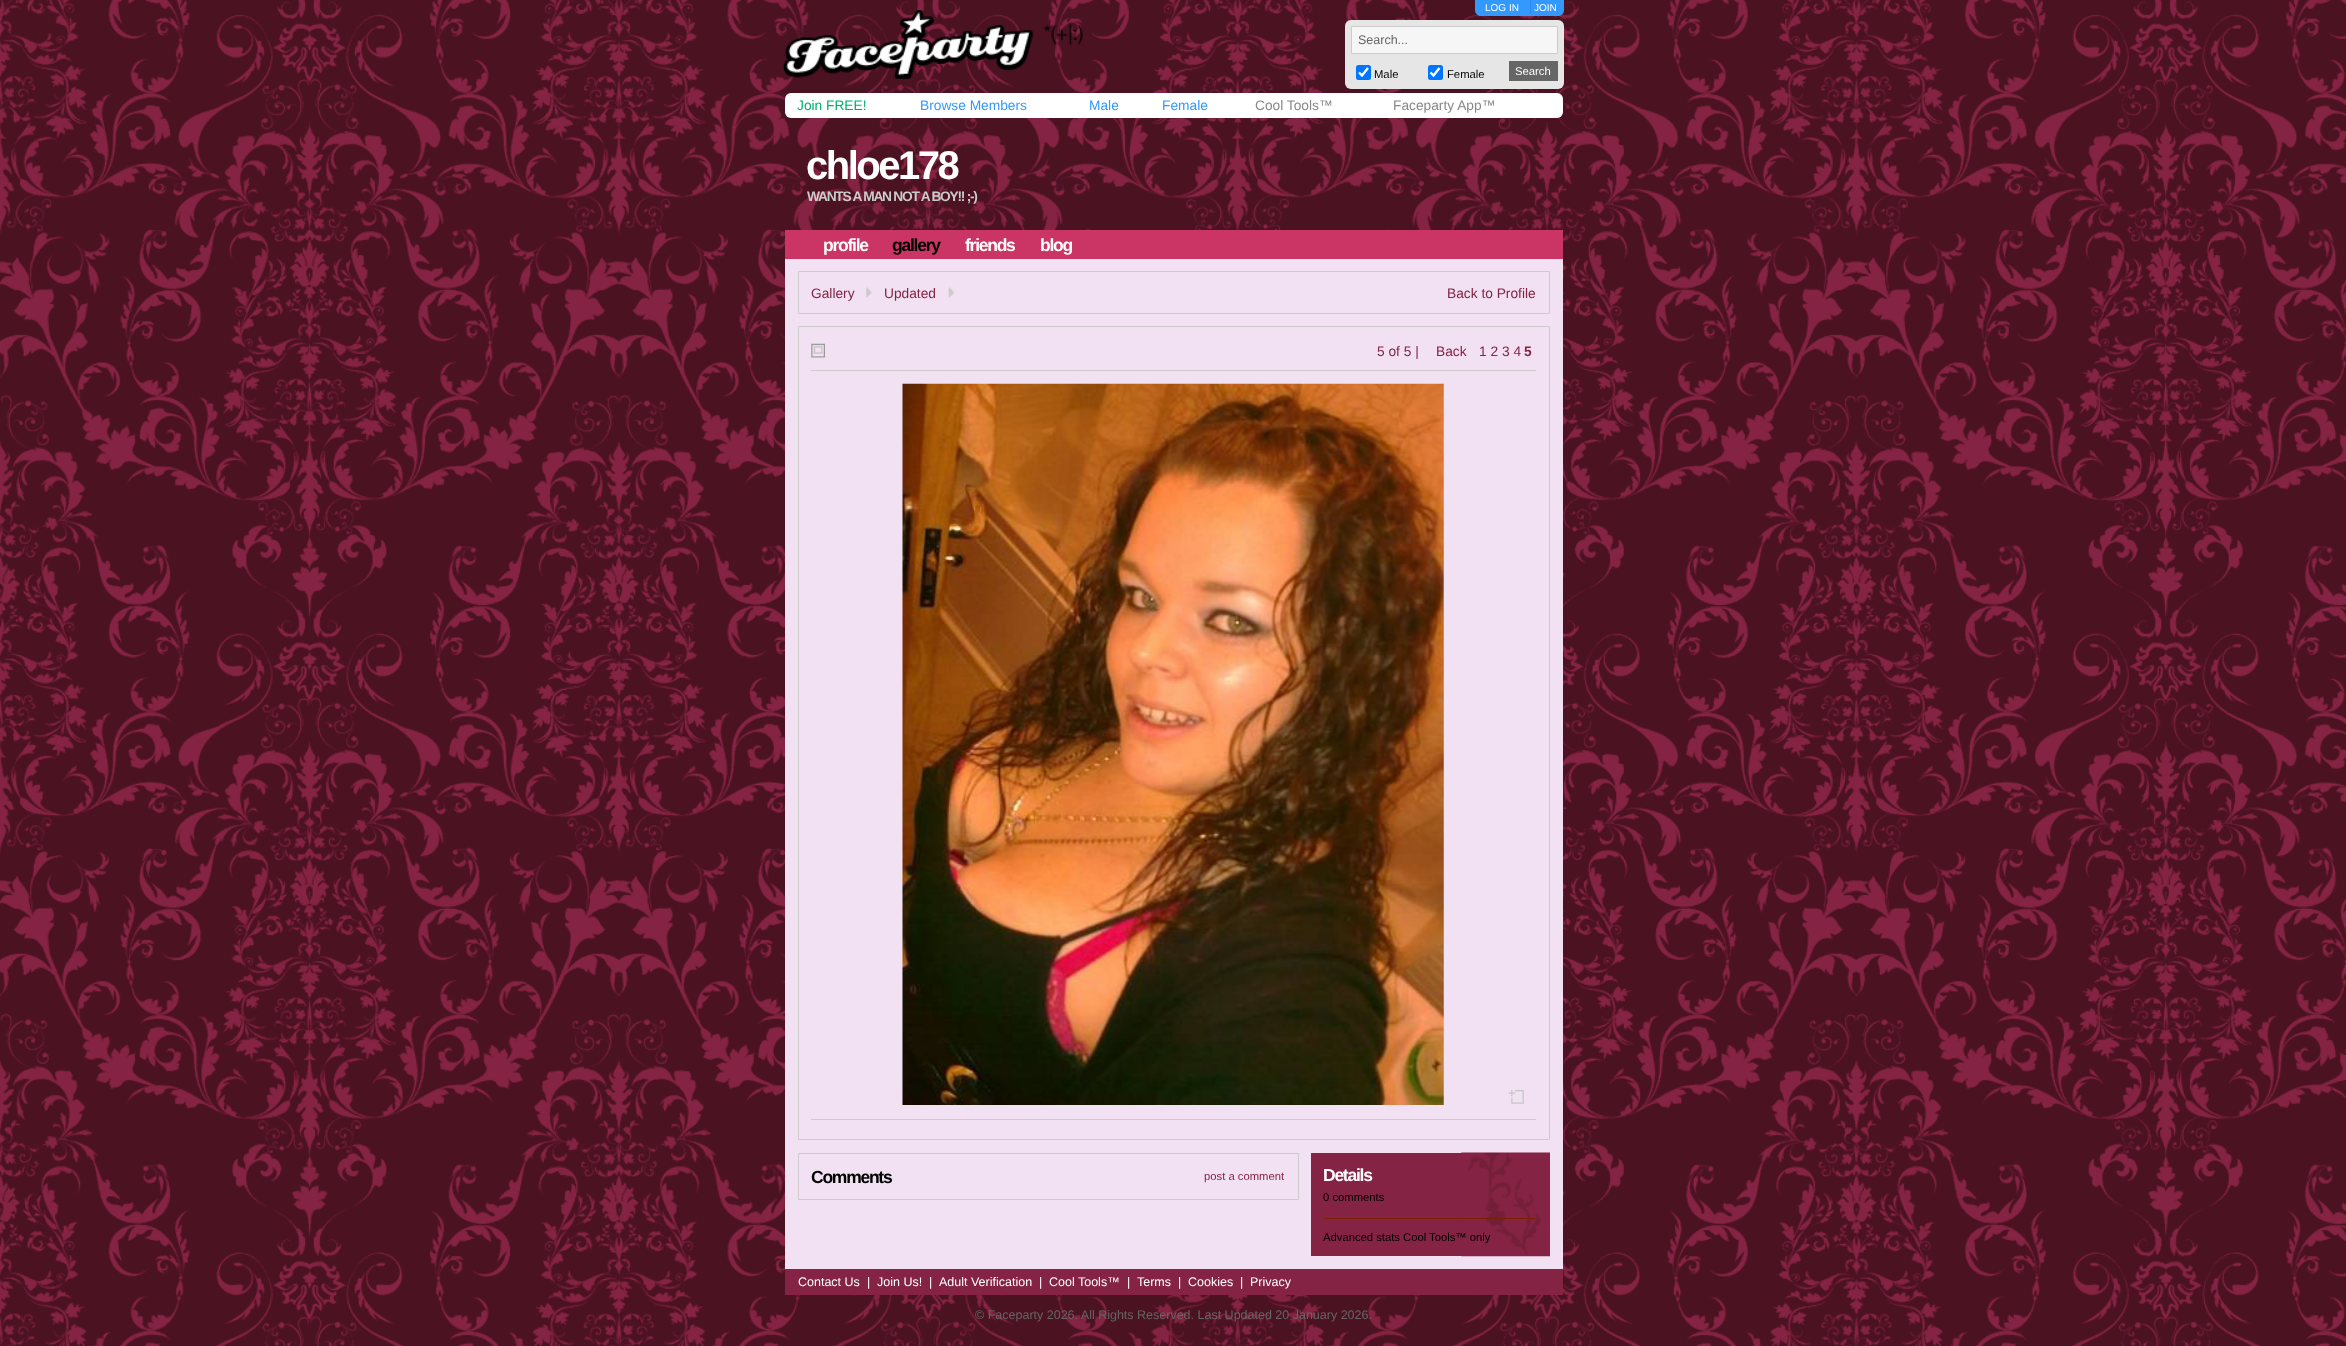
<svg xmlns="http://www.w3.org/2000/svg" width="2346" height="1346">
<style>
.a{font:10px Liberation Sans;fill:#fff}
.b{font:12.5px Liberation Sans;fill:#666}
.c{font:11.25px Liberation Sans;fill:#000}
.d{font:11.25px Liberation Sans;fill:#fff}
.e{font:13.75px Liberation Sans;fill:#00b070}
.f{font:13.75px Liberation Sans;fill:#39f}
.g{font:13.75px Liberation Sans;fill:#888}
.h{font:bold 40px Liberation Sans;letter-spacing:-2.5px;fill:#fff}
.i{font:bold 13.75px Liberation Sans;letter-spacing:-1.25px;fill:#ccc}
.j{font:bold 17.5px Liberation Sans;letter-spacing:-1.25px;fill:#fff}
.k{font:bold 17.5px Liberation Sans;letter-spacing:-1.25px;fill:#000}
.l{font:13.75px Liberation Sans;fill:#842343}
.m{font:bold 13.75px Liberation Sans;fill:#842343}
.n{font:11.25px Liberation Sans;fill:#842343}
.o{font:12.5px Liberation Sans;fill:#fff}
</style>
<rect width="100%" height="100%" fill="#fff"/>
<image href="1.png" x="0" y="0" width="2346" height="1346"/>
<image href="2.png" x="783" y="10" width="300" height="69"/>
<path fill="#39f" d="M1475 0h89v10c0 3.5-2.5 6-6 6h-77c-3.5 0-6-2.5-6-6z"/>
<path fill="#2e89e5" d="M1530 0h1v14H1530z"/>
<rect fill="#e6e6e6" x="1345" y="20" width="219" height="69" rx="6"/>
<path fill="#f6f6f6" stroke="#ccc" d="M1351.5 26.5h206v27H1351.5z"/>
<rect fill="#0075ff" x="1356" y="65" width="15" height="15" rx="2.5"/>
<path fill="none" stroke="#fff" stroke-width="2.4" d="M1359 72.5l3 3l6-7.5"/>
<rect fill="#0075ff" x="1428" y="65" width="15" height="15" rx="2.5"/>
<path fill="none" stroke="#fff" stroke-width="2.4" d="M1430.5 72.5l3 3l6-7.5"/>
<path fill="#666" d="M1509 61h49v20H1509z"/>
<rect fill="#fff" x="785" y="93" width="778" height="25" rx="6"/>
<path fill="#ca3566" d="M785 230h778v29H785z"/>
<path fill="#f1e1f2" d="M785 259h778v1010H785z"/>
<path fill="none" stroke="#ccc" d="M798.5 271.5h751v42H798.5z"/>
<image href="3.png" x="866" y="287" width="6" height="11"/>
<image href="4.png" x="948" y="287" width="6" height="11"/>
<path fill="none" stroke="#ccc" d="M798.5 326.5h751v813H798.5z"/>
<image href="5.png" x="811" y="343" width="14" height="15"/>
<path fill="#ccc" d="M811 370h725v1H811z"/>
<image href="6.png" x="902" y="383" width="542" height="722"/>
<image href="7.png" x="1508" y="1090" width="16" height="14"/>
<path fill="#ccc" d="M811 1119h725v1H811z"/>
<path fill="none" stroke="#ccc" d="M798.5 1153.5h500v46H798.5z"/>
<path fill="#842343" d="M1311 1153h151v103H1311z"/>
<image href="8.png" x="1461" y="1152" width="89" height="105"/>
<path fill="#7d2000" d="M1324 1218h211v1H1324z"/>
<path fill="#842343" d="M785 1269h778v26H785z"/>
<text class="a" x="1485" y="11">LOG IN</text>
<text class="a" x="1534" y="11">JOIN</text>
<text class="b" x="1358" y="44">Search...</text>
<text class="c" x="1374" y="78">Male</text>
<text class="c" x="1447" y="78">Female</text>
<text class="d" x="1515" y="75">Search</text>
<text class="e" x="797" y="110">Join FREE!</text>
<text class="f" x="920" y="110">Browse Members</text>
<text class="f" x="1089" y="110">Male</text>
<text class="f" x="1162" y="110">Female</text>
<text class="g" x="1255" y="110">Cool Tools™</text>
<text class="g" x="1393" y="110">Faceparty App™</text>
<text class="h" x="806" y="179">chloe178</text>
<text class="i" x="807" y="201">WANTS A MAN NOT A BOY!! ;-)</text>
<text class="j" x="823" y="251">profile</text>
<text class="k" x="892" y="251">gallery</text>
<text class="j" x="965" y="251">friends</text>
<text class="j" x="1040" y="251">blog</text>
<text class="l" x="811" y="298">Gallery</text>
<text class="l" x="884" y="298">Updated</text>
<text class="l" x="1447" y="298">Back to Profile</text>
<text class="l" x="1377" y="356">5 of 5 |</text>
<text class="l" x="1436" y="356">Back</text>
<text class="l" x="1479" y="356">1 2 3 4</text>
<text class="m" x="1524" y="356">5</text>
<text class="k" x="811" y="1183">Comments</text>
<text class="n" x="1204" y="1180">post a comment</text>
<text class="j" x="1323" y="1181">Details</text>
<text class="c" x="1323" y="1201">0 comments</text>
<text class="c" x="1323" y="1241">Advanced stats Cool Tools™ only</text>
<text class="o" x="798" y="1286">Contact Us</text>
<text class="o" x="867" y="1286">|</text>
<text class="o" x="877" y="1286">Join Us!</text>
<text class="o" x="929" y="1286">|</text>
<text class="o" x="939" y="1286">Adult Verification</text>
<text class="o" x="1039" y="1286">|</text>
<text class="o" x="1049" y="1286">Cool Tools™</text>
<text class="o" x="1127" y="1286">|</text>
<text class="o" x="1137" y="1286">Terms</text>
<text class="o" x="1178" y="1286">|</text>
<text class="o" x="1188" y="1286">Cookies</text>
<text class="o" x="1240" y="1286">|</text>
<text class="o" x="1250" y="1286">Privacy</text>
<text class="b" x="975" y="1319">© Faceparty 2026. All Rights Reserved. Last Updated 20 January 2026.</text>
</svg>
